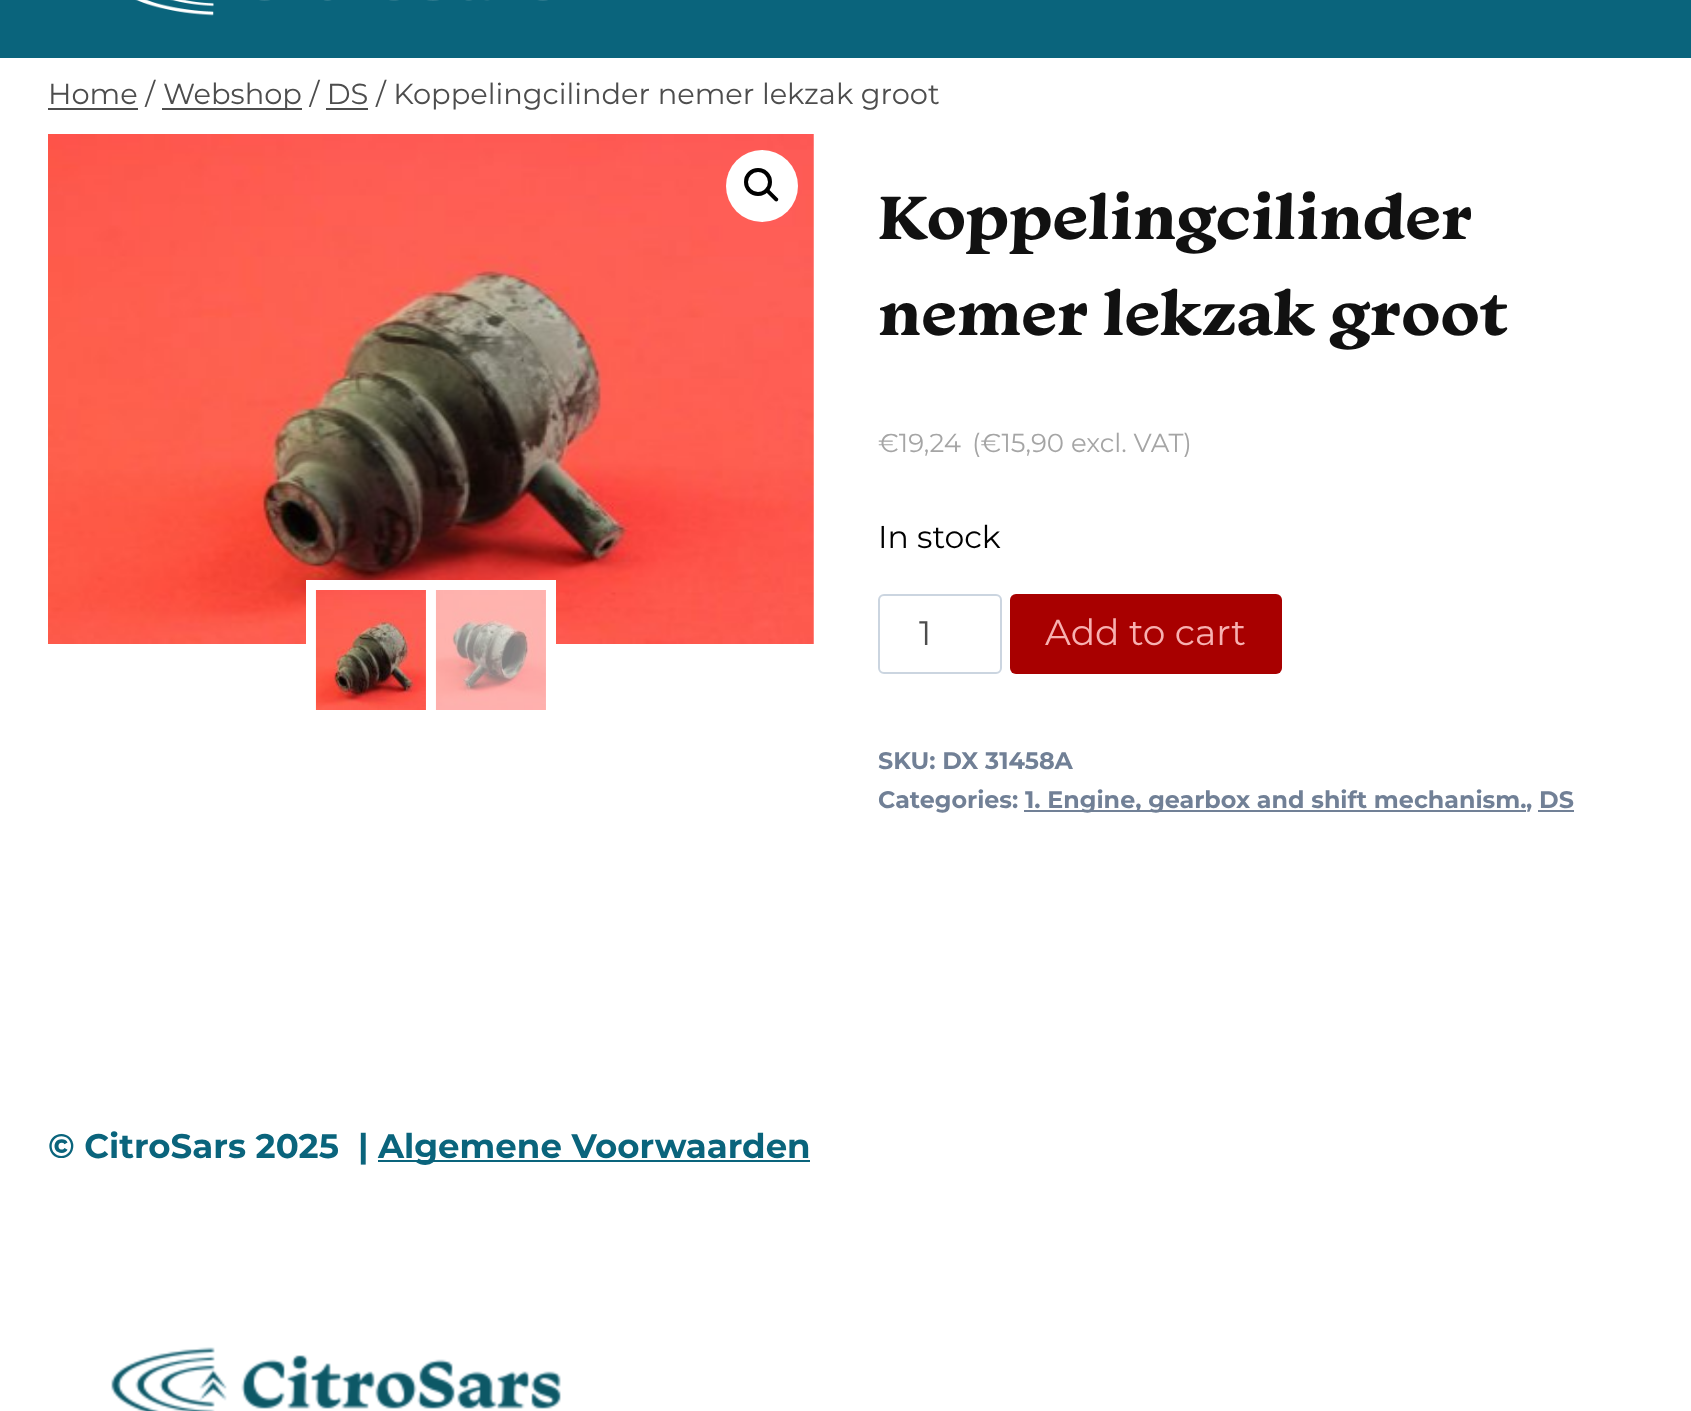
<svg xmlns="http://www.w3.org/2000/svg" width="1691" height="1411">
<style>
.a{font:28.9px Montserrat;fill:#4d4d4d}
.b{font:bold 64px 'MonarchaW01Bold';fill:#111}
.c{font:26px Montserrat;fill:#a5a5a5}
.d{font:31.5px Montserrat;fill:#000}
.e{font:34px Montserrat;fill:#4d4d4d}
.f{font:36px Montserrat;fill:#f7b0b0}
.g{font:bold 23.8px Montserrat;fill:#718096}
.h{font:bold 34px Montserrat;fill:#0a647c}
</style>
<rect width="100%" height="100%" fill="#fff"/>
<path fill="#0a647c" d="M0 0h1691v58H0z"/>
<image href="1.png" x="135" y="0" width="413" height="16"/>
<path fill="#4d4d4d" d="M48 108h90v2H48z"/>
<path fill="#4d4d4d" d="M162 108h140v2H162z"/>
<path fill="#4d4d4d" d="M326 108h42v2H326z"/>
<image href="2.png" x="48" y="134" width="766" height="510"/>
<circle fill="#fff" cx="762" cy="186" r="36"/>
<circle fill="none" stroke="#000" stroke-width="4" cx="758" cy="182" r="12"/>
<path fill="#000" d="M766.5 189.5c.5-1 2-1 2.5 0l8.5 8.5c1 .5 1 2 0 3c-.5 .5-2 .5-2.5 0l-8.5-8.5c-1-1-1-2.5 0-3z"/>
<path fill="#fff" d="M306 580h250v64H306z"/>
<image href="3.png" x="315" y="590" width="111" height="120"/>
<image href="4.png" x="435" y="590" width="111" height="120"/>
<rect fill="none" stroke="#cbd5e0" stroke-width="2" x="879" y="595" width="122" height="78" rx="5"/>
<rect fill="#a80000" x="1010" y="594" width="272" height="80" rx="6"/>
<path fill="#718096" d="M1024 810h502v2H1024z"/>
<path fill="#718096" d="M1538 810h36v2H1538z"/>
<path fill="#0a647c" d="M378 1160h432v2H378z"/>
<image href="5.png" x="111" y="1347" width="450" height="64"/>
<text class="a" x="48" y="104">Home /</text>
<text class="a" x="163" y="104">Webshop / DS / Koppelingcilinder nemer lekzak groot</text>
<text class="b" x="878" y="239">Koppelingcilinder</text>
<text class="b" x="878" y="335">nemer lekzak groot</text>
<text class="c" x="878" y="452">€19,24</text>
<text class="c" x="972" y="452">(€15,90</text>
<text class="c" x="1071" y="452">excl. VAT)</text>
<text class="d" x="878" y="548">In stock</text>
<text class="e" x="919" y="645">1</text>
<text class="f" x="1045" y="645">Add to cart</text>
<text class="g" x="878" y="769">SKU: DX 31458A</text>
<text class="g" x="878" y="808">Categories:</text>
<text class="g" x="1025" y="808">1. Engine, gearbox and shift mechanism.</text>
<text class="g" x="1526" y="808">, DS</text>
<text class="h" xml:space="preserve" x="48" y="1158">© CitroSars 2025  |</text>
<text class="h" x="378" y="1158">Algemene Voorwaarden</text>
</svg>
